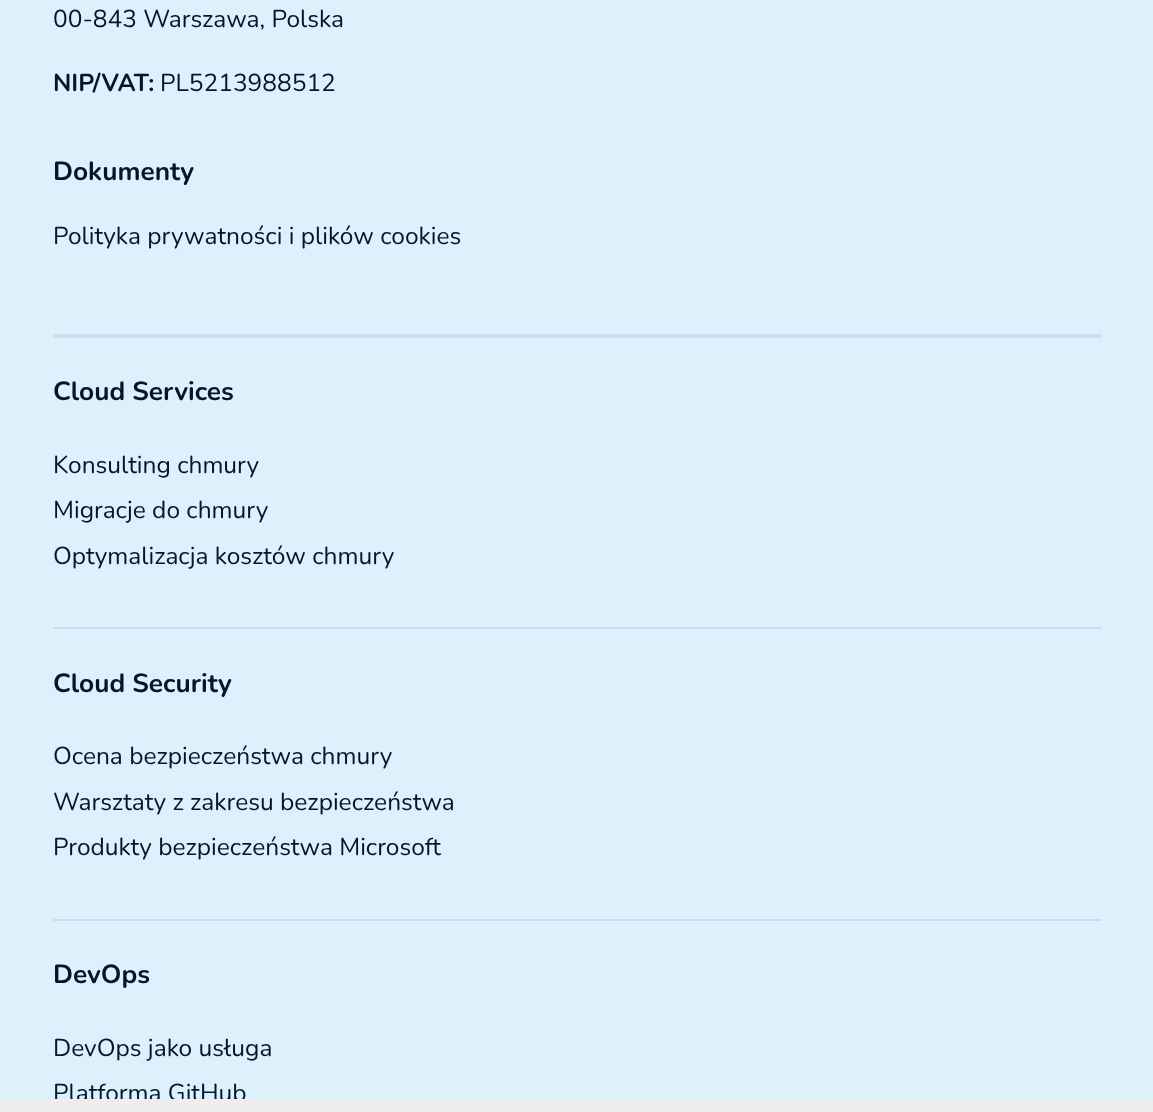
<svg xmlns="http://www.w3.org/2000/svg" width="1153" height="1112">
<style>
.a{font:24.5px Nunito;fill:#02172b}
.b{font:bold 24.5px Nunito;fill:#02172b}
.c{font:bold 26.25px Nunito;fill:#02172b}
</style>
<rect width="100%" height="100%" fill="#ddf1fd"/>
<path fill="#c7deec" d="M53 334h1048v4H53z"/>
<path fill="#c7deec" d="M53 627h1048v2H53z"/>
<path fill="#c7deec" d="M53 919h1048v2H53z"/>
<text class="a" x="53" y="27">00-843 Warszawa, Polska</text>
<text class="b" x="53" y="91">NIP/VAT:</text>
<text class="a" x="160" y="91">PL5213988512</text>
<text class="c" x="53" y="180">Dokumenty</text>
<text class="a" x="53" y="244">Polityka prywatności i plików cookies</text>
<text class="c" x="53" y="400">Cloud Services</text>
<text class="a" x="53" y="473">Konsulting chmury</text>
<text class="a" x="53" y="518">Migracje do chmury</text>
<text class="a" x="53" y="564">Optymalizacja kosztów chmury</text>
<text class="c" x="53" y="692">Cloud Security</text>
<text class="a" x="53" y="764">Ocena bezpieczeństwa chmury</text>
<text class="a" x="53" y="810">Warsztaty z zakresu bezpieczeństwa</text>
<text class="a" x="53" y="855">Produkty bezpieczeństwa Microsoft</text>
<text class="c" x="53" y="983">DevOps</text>
<text class="a" x="53" y="1056">DevOps jako usługa</text>
<text class="a" x="53" y="1101">Platforma GitHub</text>
<path fill="#eee" d="M0 1099h1153v13H0z"/>
</svg>
